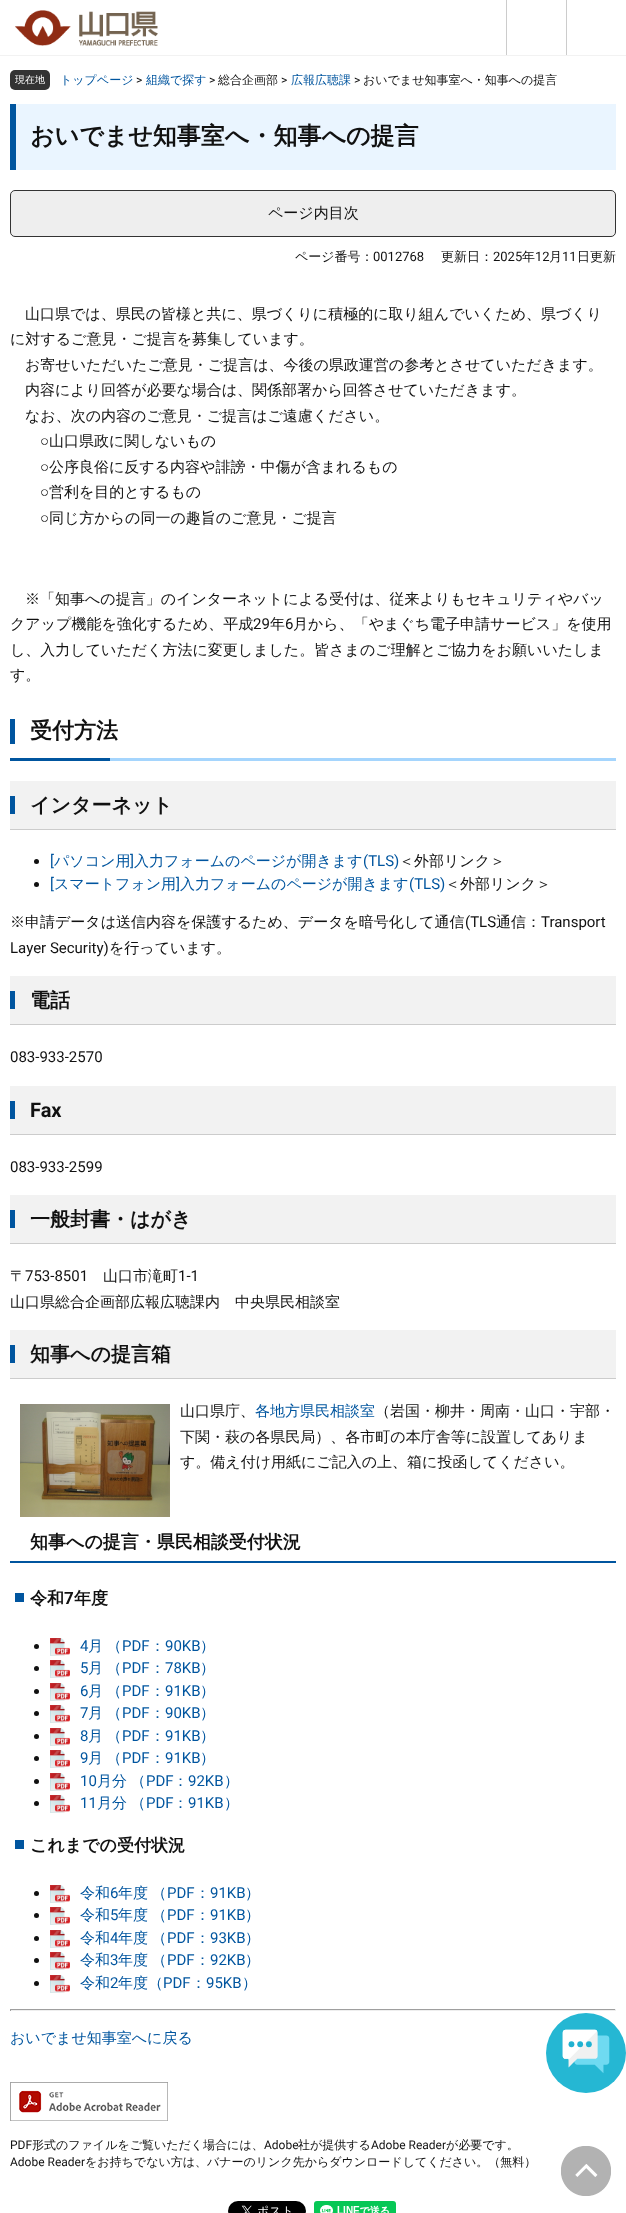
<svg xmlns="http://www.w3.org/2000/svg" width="626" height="2213">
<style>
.a{font:500 10px WenQuanYi Zen Hei;fill:#fff}
.b{font:500 12px WenQuanYi Zen Hei;fill:#00559f}
.c{font:12px Roboto;fill:#111}
.d{font:500 12px WenQuanYi Zen Hei;fill:#111}
.e{font:bold 24px WenQuanYi Zen Hei;fill:#111}
.f{font:500 15px WenQuanYi Zen Hei;fill:#111}
.g{font:500 13px WenQuanYi Zen Hei;fill:#111}
.h{font:13px Roboto;fill:#111}
.i{font:15px Liberation Sans;fill:#111}
.j{font:15px Roboto;fill:#111}
.k{font:bold 22px WenQuanYi Zen Hei;fill:#111}
.l{font:bold 20px WenQuanYi Zen Hei;fill:#111}
.m{font:15px Roboto;fill:#00559f}
.n{font:500 15px WenQuanYi Zen Hei;fill:#00559f}
.o{font:bold 20px Roboto;fill:#111}
.p{font:bold 18px WenQuanYi Zen Hei;fill:#111}
.q{font:bold 17px WenQuanYi Zen Hei;fill:#111}
.r{font:bold 17px Roboto;fill:#111}
</style>
<rect width="100%" height="100%" fill="#fff"/>
<path fill="#f2f2f2" d="M0 55h626v1H0z"/>
<image href="1.png" x="15" y="10" width="143" height="36"/>
<path fill="#ccc" d="M506 0h1v55H506z"/>
<path fill="#ccc" d="M566 0h1v55H566z"/>
<rect fill="#333" x="10" y="70" width="40" height="20" rx="5"/>
<path fill="#eaf5ff" d="M16 104h600v66H16z"/>
<path fill="#00559f" d="M10 104h6v66H10z"/>
<rect fill="#eee" stroke="#333" x="10.5" y="190.5" width="605" height="46" rx="4.5"/>
<path fill="#00559f" d="M10 719h5v25H10z"/>
<path fill="#a5d5fd" d="M110 758h506v3H110z"/>
<path fill="#00559f" d="M10 758h100v3H10z"/>
<path fill="#f2f2f2" d="M10 781h606v48H10z"/>
<path fill="#00559f" d="M10 796h5v18H10z"/>
<path fill="#ccc" d="M10 829h606v1H10z"/>
<circle fill="#111" cx="36.5" cy="861.5" r="2.5"/>
<circle fill="#111" cx="36.5" cy="884.5" r="2.5"/>
<path fill="#f2f2f2" d="M10 976h606v48H10z"/>
<path fill="#00559f" d="M10 991h5v18H10z"/>
<path fill="#ccc" d="M10 1024h606v1H10z"/>
<path fill="#f2f2f2" d="M10 1086h606v48H10z"/>
<path fill="#00559f" d="M10 1101h5v18H10z"/>
<path fill="#ccc" d="M10 1134h606v1H10z"/>
<path fill="#f2f2f2" d="M10 1195h606v48H10z"/>
<path fill="#00559f" d="M10 1210h5v18H10z"/>
<path fill="#ccc" d="M10 1243h606v1H10z"/>
<path fill="#f2f2f2" d="M10 1330h606v48H10z"/>
<path fill="#00559f" d="M10 1345h5v18H10z"/>
<path fill="#ccc" d="M10 1378h606v1H10z"/>
<image href="2.png" x="20" y="1404" width="150" height="113"/>
<path fill="#00559f" d="M10 1561h606v2H10z"/>
<path fill="#00559f" d="M15 1593h9v9H15z"/>
<circle fill="#111" cx="36.5" cy="1646.5" r="2.5"/>
<image href="3.png" x="50" y="1638" width="20" height="18"/>
<circle fill="#111" cx="36.5" cy="1668.5" r="2.5"/>
<image href="3.png" x="50" y="1660" width="20" height="18"/>
<circle fill="#111" cx="36.5" cy="1691.5" r="2.5"/>
<image href="3.png" x="50" y="1683" width="20" height="18"/>
<circle fill="#111" cx="36.5" cy="1713.5" r="2.5"/>
<image href="3.png" x="50" y="1705" width="20" height="18"/>
<circle fill="#111" cx="36.5" cy="1736.5" r="2.5"/>
<image href="3.png" x="50" y="1728" width="20" height="18"/>
<circle fill="#111" cx="36.5" cy="1758.5" r="2.5"/>
<image href="3.png" x="50" y="1750" width="20" height="18"/>
<circle fill="#111" cx="36.5" cy="1781.5" r="2.5"/>
<image href="3.png" x="50" y="1773" width="20" height="18"/>
<circle fill="#111" cx="36.5" cy="1803.5" r="2.5"/>
<image href="3.png" x="50" y="1795" width="20" height="18"/>
<path fill="#00559f" d="M15 1840h9v9H15z"/>
<circle fill="#111" cx="36.5" cy="1893.5" r="2.5"/>
<image href="3.png" x="50" y="1885" width="20" height="18"/>
<circle fill="#111" cx="36.5" cy="1915.5" r="2.5"/>
<image href="3.png" x="50" y="1907" width="20" height="18"/>
<circle fill="#111" cx="36.5" cy="1938.5" r="2.5"/>
<image href="3.png" x="50" y="1930" width="20" height="18"/>
<circle fill="#111" cx="36.5" cy="1960.5" r="2.5"/>
<image href="3.png" x="50" y="1952" width="20" height="18"/>
<circle fill="#111" cx="36.5" cy="1983.5" r="2.5"/>
<image href="3.png" x="50" y="1975" width="20" height="18"/>
<path fill="#9f9f9f" d="M10 2009h606v1H10z"/>
<path fill="#eee" d="M615 2009h1v2H615z"/>
<path fill="#eee" d="M10 2010h606v1H10z"/>
<path fill="#9f9f9f" d="M10 2009h1v2H10z"/>
<image href="4.png" x="10" y="2082" width="158" height="39"/>
<image href="5.png" x="228" y="2201" width="78" height="12"/>
<image href="6.png" x="314" y="2201" width="82" height="12"/>
<image href="7.png" x="561" y="2146" width="50" height="50"/>
<image href="8.png" x="546" y="2013" width="80" height="80"/>
<text class="a" x="15" y="83">現在地</text>
<text class="b" x="60" y="84">トップページ</text>
<text class="c" x="136" y="84">&gt;</text>
<text class="b" x="146" y="84">組織で探す</text>
<text class="c" x="209" y="84">&gt;</text>
<text class="d" x="218" y="84">総合企画部</text>
<text class="c" x="281" y="84">&gt;</text>
<text class="b" x="291" y="84">広報広聴課</text>
<text class="c" x="354" y="84">&gt;</text>
<text class="d" x="363" y="84">おいでませ知事室へ・知事への提言</text>
<text class="e" x="30" y="144">おいでませ知事室へ・知事への提言</text>
<text class="f" x="268" y="218">ページ内目次</text>
<text class="g" x="295" y="261">ページ番号：</text>
<text class="h" x="373" y="261">0012768</text>
<text class="g" x="441" y="261">更新日：</text>
<text class="h" x="493" y="261">2025</text>
<text class="g" x="522" y="261">年</text>
<text class="h" x="535" y="261">12</text>
<text class="g" x="549" y="261">月</text>
<text class="h" x="562" y="261">11</text>
<text class="g" x="577" y="261">日更新</text>
<text class="f" x="25" y="319">山口県では、県民の皆様と共に、県づくりに積極的に取り組んでいくため、県づくり</text>
<text class="f" x="10" y="344">に対するご意見・ご提言を募集しています。</text>
<text class="f" x="25" y="370">お寄せいただいたご意見・ご提言は、今後の県政運営の参考とさせていただきます。</text>
<text class="f" x="25" y="395">内容により回答が必要な場合は、関係部署から回答させていただきます。</text>
<text class="f" x="25" y="421">なお、次の内容のご意見・ご提言はご遠慮ください。</text>
<text class="i" x="40" y="446">○</text>
<text class="f" x="49" y="446">山口県政に関しないもの</text>
<text class="i" x="40" y="472">○</text>
<text class="f" x="49" y="472">公序良俗に反する内容や誹謗・中傷が含まれるもの</text>
<text class="i" x="40" y="497">○</text>
<text class="f" x="49" y="497">営利を目的とするもの</text>
<text class="i" x="40" y="523">○</text>
<text class="f" x="49" y="523">同じ方からの同一の趣旨のご意見・ご提言</text>
<text class="f" x="25" y="604">※「知事への提言」のインターネットによる受付は、従来よりもセキュリティやバッ</text>
<text class="f" x="10" y="629">クアップ機能を強化するため、平成</text>
<text class="j" x="253" y="629">29</text>
<text class="f" x="270" y="629">年</text>
<text class="j" x="285" y="629">6</text>
<text class="f" x="293" y="629">月から、「やまぐち電子申請サービス」を使用</text>
<text class="f" x="10" y="655">し、入力していただく方法に変更しました。皆さまのご理解とご協力をお願いいたしま</text>
<text class="f" x="10" y="680">す。</text>
<text class="k" x="30" y="738">受付方法</text>
<text class="l" x="30" y="812">インターネット</text>
<text class="m" x="50" y="866">[</text>
<text class="n" x="54" y="866">パソコン用</text>
<text class="m" x="130" y="866">]</text>
<text class="n" x="134" y="866">入力フォームのページが開きます</text>
<text class="m" x="363" y="866">(TLS)</text>
<text class="f" x="399" y="866">＜外部リンク＞</text>
<text class="m" x="50" y="889">[</text>
<text class="n" x="54" y="889">スマートフォン用</text>
<text class="m" x="176" y="889">]</text>
<text class="n" x="180" y="889">入力フォームのページが開きます</text>
<text class="m" x="409" y="889">(TLS)</text>
<text class="f" x="445" y="889">＜外部リンク＞</text>
<text class="f" x="10" y="927">※申請データは送信内容を保護するため、データを暗号化して通信</text>
<text class="j" x="465" y="927">(TLS</text>
<text class="f" x="496" y="927">通信：</text>
<text class="j" x="541" y="927">Transport</text>
<text class="j" x="10" y="953">Layer Security)</text>
<text class="f" x="109" y="953">を行っています。</text>
<text class="l" x="30" y="1007">電話</text>
<text class="j" x="10" y="1062">083-933-2570</text>
<text class="o" x="30" y="1117">Fax</text>
<text class="j" x="10" y="1172">083-933-2599</text>
<text class="l" x="30" y="1226">一般封書・はがき</text>
<text class="f" x="10" y="1281">〒</text>
<text class="j" x="25" y="1281">753-8501</text>
<text class="f" x="103" y="1281">山口市滝町</text>
<text class="j" x="178" y="1281">1-1</text>
<text class="f" x="10" y="1307">山口県総合企画部広報広聴課内　中央県民相談室</text>
<text class="l" x="30" y="1361">知事への提言箱</text>
<text class="f" x="180" y="1416">山口県庁、</text>
<text class="n" x="255" y="1416">各地方県民相談室</text>
<text class="f" x="375" y="1416">（岩国・柳井・周南・山口・宇部・</text>
<text class="f" x="180" y="1442">下関・萩の各県民局）、各市町の本庁舎等に設置してありま</text>
<text class="f" x="180" y="1467">す。備え付け用紙にご記入の上、箱に投函してください。</text>
<text class="p" x="30" y="1548">知事への提言・県民相談受付状況</text>
<text class="q" x="30" y="1604">令和</text>
<text class="r" x="64" y="1604">7</text>
<text class="q" x="74" y="1604">年度</text>
<text class="m" x="80" y="1651">4</text>
<text class="n" x="88" y="1651" word-spacing="-1">月 （</text>
<text class="m" x="122" y="1651">PDF</text>
<text class="n" x="150" y="1651">：</text>
<text class="m" x="165" y="1651">90KB</text>
<text class="n" x="200" y="1651">）</text>
<text class="m" x="80" y="1673">5</text>
<text class="n" x="88" y="1673" word-spacing="-1">月 （</text>
<text class="m" x="122" y="1673">PDF</text>
<text class="n" x="150" y="1673">：</text>
<text class="m" x="165" y="1673">78KB</text>
<text class="n" x="200" y="1673">）</text>
<text class="m" x="80" y="1696">6</text>
<text class="n" x="88" y="1696" word-spacing="-1">月 （</text>
<text class="m" x="122" y="1696">PDF</text>
<text class="n" x="150" y="1696">：</text>
<text class="m" x="165" y="1696">91KB</text>
<text class="n" x="200" y="1696">）</text>
<text class="m" x="80" y="1718">7</text>
<text class="n" x="88" y="1718" word-spacing="-1">月 （</text>
<text class="m" x="122" y="1718">PDF</text>
<text class="n" x="150" y="1718">：</text>
<text class="m" x="165" y="1718">90KB</text>
<text class="n" x="200" y="1718">）</text>
<text class="m" x="80" y="1741">8</text>
<text class="n" x="88" y="1741" word-spacing="-1">月 （</text>
<text class="m" x="122" y="1741">PDF</text>
<text class="n" x="150" y="1741">：</text>
<text class="m" x="165" y="1741">91KB</text>
<text class="n" x="200" y="1741">）</text>
<text class="m" x="80" y="1763">9</text>
<text class="n" x="88" y="1763" word-spacing="-1">月 （</text>
<text class="m" x="122" y="1763">PDF</text>
<text class="n" x="150" y="1763">：</text>
<text class="m" x="165" y="1763">91KB</text>
<text class="n" x="200" y="1763">）</text>
<text class="m" x="80" y="1786">10</text>
<text class="n" x="97" y="1786" word-spacing="-1">月分 （</text>
<text class="m" x="146" y="1786">PDF</text>
<text class="n" x="173" y="1786">：</text>
<text class="m" x="188" y="1786">92KB</text>
<text class="n" x="224" y="1786">）</text>
<text class="m" x="80" y="1808">11</text>
<text class="n" x="97" y="1808" word-spacing="-1">月分 （</text>
<text class="m" x="146" y="1808">PDF</text>
<text class="n" x="173" y="1808">：</text>
<text class="m" x="188" y="1808">91KB</text>
<text class="n" x="224" y="1808">）</text>
<text class="q" x="30" y="1851">これまでの受付状況</text>
<text class="n" x="80" y="1898">令和</text>
<text class="m" x="110" y="1898">6</text>
<text class="n" x="118" y="1898" word-spacing="-1">年度 （</text>
<text class="m" x="167" y="1898">PDF</text>
<text class="n" x="195" y="1898">：</text>
<text class="m" x="210" y="1898">91KB</text>
<text class="n" x="245" y="1898">）</text>
<text class="n" x="80" y="1920">令和</text>
<text class="m" x="110" y="1920">5</text>
<text class="n" x="118" y="1920" word-spacing="-1">年度 （</text>
<text class="m" x="167" y="1920">PDF</text>
<text class="n" x="195" y="1920">：</text>
<text class="m" x="210" y="1920">91KB</text>
<text class="n" x="245" y="1920">）</text>
<text class="n" x="80" y="1943">令和</text>
<text class="m" x="110" y="1943">4</text>
<text class="n" x="118" y="1943" word-spacing="-1">年度 （</text>
<text class="m" x="167" y="1943">PDF</text>
<text class="n" x="195" y="1943">：</text>
<text class="m" x="210" y="1943">93KB</text>
<text class="n" x="245" y="1943">）</text>
<text class="n" x="80" y="1965">令和</text>
<text class="m" x="110" y="1965">3</text>
<text class="n" x="118" y="1965" word-spacing="-1">年度 （</text>
<text class="m" x="167" y="1965">PDF</text>
<text class="n" x="195" y="1965">：</text>
<text class="m" x="210" y="1965">92KB</text>
<text class="n" x="245" y="1965">）</text>
<text class="n" x="80" y="1988">令和</text>
<text class="m" x="110" y="1988">2</text>
<text class="n" x="118" y="1988">年度（</text>
<text class="m" x="163" y="1988">PDF</text>
<text class="n" x="191" y="1988">：</text>
<text class="m" x="206" y="1988">95KB</text>
<text class="n" x="242" y="1988">）</text>
<text class="n" x="10" y="2043">おいでませ知事室へに戻る</text>
<text class="c" x="10" y="2149">PDF</text>
<text class="d" x="32" y="2149">形式のファイルをご覧いただく場合には、</text>
<text class="c" x="264" y="2149">Adobe</text>
<text class="d" x="298" y="2149">社が提供する</text>
<text class="c" x="371" y="2149">Adobe Reader</text>
<text class="d" x="446" y="2149">が必要です。</text>
<text class="c" x="10" y="2166">Adobe Reader</text>
<text class="d" x="85" y="2166">をお持ちでない方は、バナーのリンク先からダウンロードしてください。（無料）</text>
</svg>
